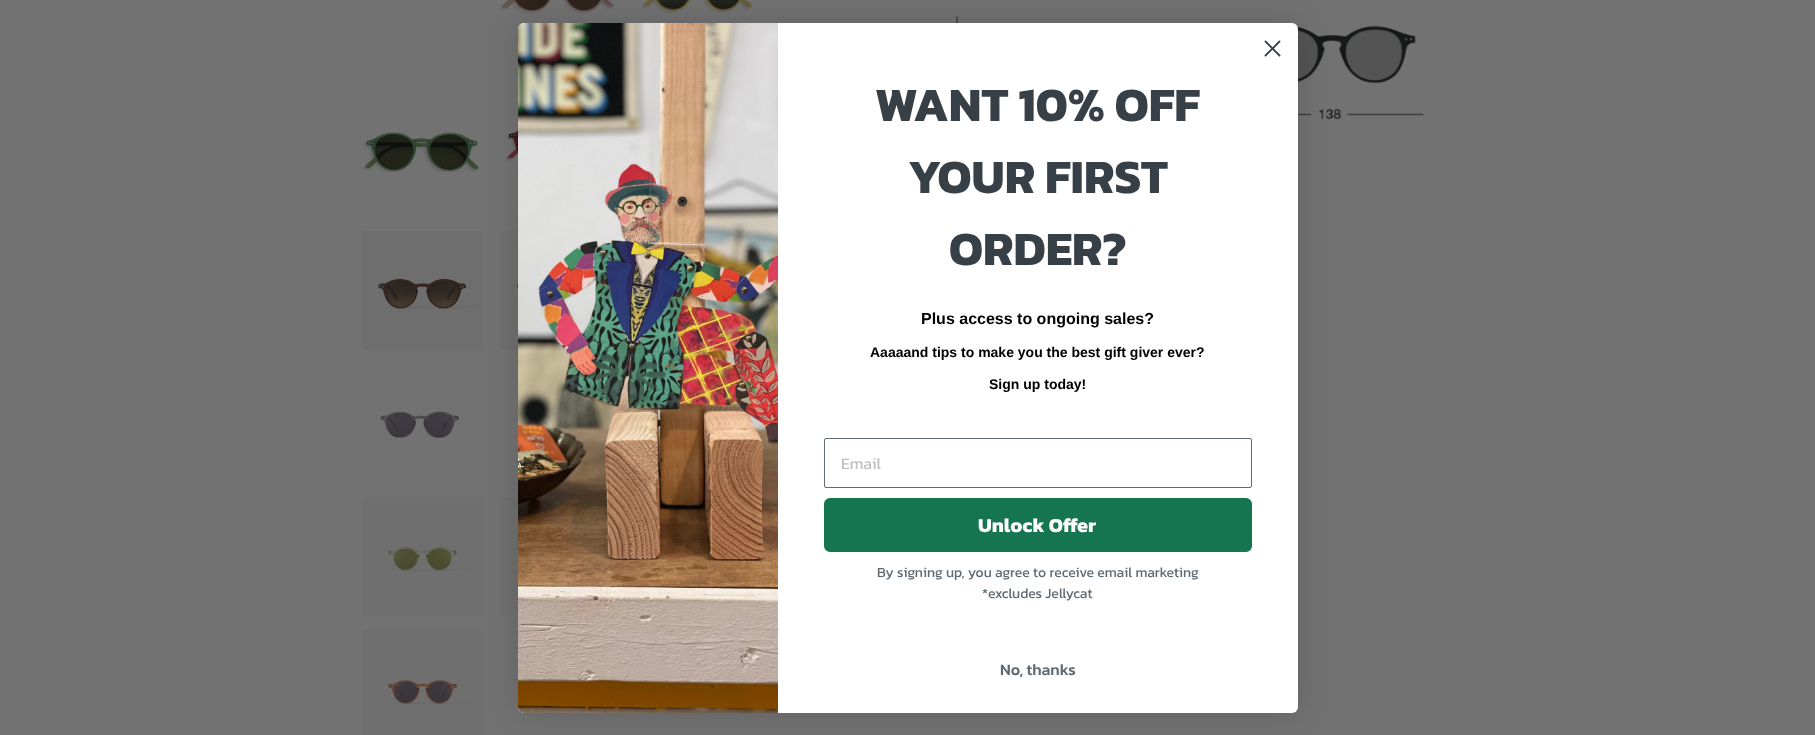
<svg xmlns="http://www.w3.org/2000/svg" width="1815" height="735">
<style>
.a{font:bold 48px Kanit;fill:#373f47}
.b{font:bold 16px Liberation Sans;fill:#000}
.c{font:bold 14px Liberation Sans;fill:#000}
.d{font:16px Kanit;fill:#bfbfc0}
.e{font:bold 20px Kanit;fill:#fff}
.f{font:14px Kanit;fill:#606a72}
.g{font:500 16px Kanit;fill:#606a72}
</style>
<rect width="100%" height="100%" fill="#727272"/>
<image href="1.png" x="500" y="0" width="115" height="14"/>
<image href="2.png" x="642" y="0" width="111" height="14"/>
<image href="3.png" x="363" y="132" width="116" height="40"/>
<image href="4.png" x="505" y="126" width="13" height="37"/>
<image href="5.png" x="363" y="231" width="119" height="119"/>
<image href="6.png" x="500" y="231" width="18" height="119"/>
<image href="7.png" x="380" y="411" width="80" height="27"/>
<image href="8.png" x="363" y="497" width="119" height="119"/>
<image href="9.png" x="500" y="497" width="18" height="119"/>
<image href="10.png" x="363" y="630" width="119" height="105"/>
<image href="11.png" x="956" y="16" width="468" height="104"/>
<rect fill="#00000026" filter="blur(15px)" x="518" y="23" width="780" height="690" rx="6"/>
<rect fill="#fff" x="518" y="23" width="780" height="690" rx="6"/>
<path fill="none" stroke="#373f47" stroke-width="1.8" stroke-linecap="round" stroke-linejoin="round" d="M1265.5 41.5l14 14m-14 0l14-14z"/>
<image href="12.png" x="518" y="23" width="260" height="690"/>
<rect fill="none" stroke="#606a72" x="824.5" y="438.5" width="427" height="49" rx="1.5"/>
<rect fill="#157551" stroke="#157551" stroke-width="6" x="827" y="501" width="422" height="48" rx="3"/>
<text class="a" x="875" y="121">WANT 10% OFF</text>
<text class="a" x="908" y="193">YOUR FIRST</text>
<text class="a" x="949" y="265">ORDER?</text>
<text class="b" x="921" y="324">Plus access to ongoing sales?</text>
<text class="c" x="870" y="357">Aaaaand tips to make you the best gift giver ever?</text>
<text class="c" x="989" y="389">Sign up today!</text>
<text class="d" x="841" y="469">Email</text>
<text class="e" x="978" y="532">Unlock Offer</text>
<text class="f" x="877" y="577">By signing up, you agree to receive email marketing</text>
<text class="f" x="982" y="598">*excludes Jellycat</text>
<text class="g" x="1000" y="675">No, thanks</text>
</svg>
